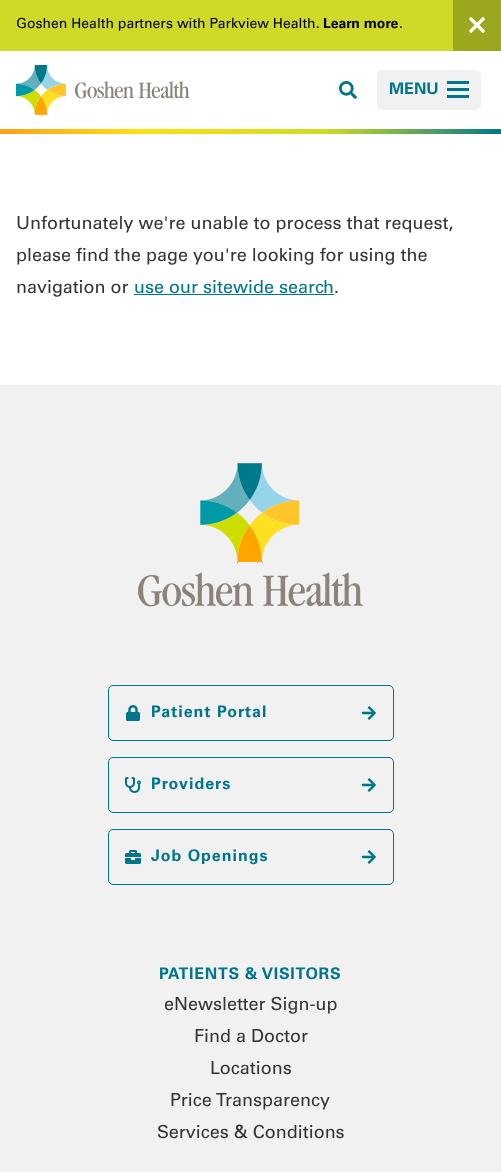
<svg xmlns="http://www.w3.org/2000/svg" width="501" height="1172">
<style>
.a{font:14px Univers;fill:#000}
.b{font:bold 14px Univers;fill:#000}
.c{font:bold 16px Univers;fill:#01768a}
.d{font:18px Univers;fill:#343434}
.e{font:18px Univers;fill:#01768a}
.f{font:bold 16px Univers;letter-spacing:1px;fill:#01768a}
.g{font:bold 16px Univers;letter-spacing:0.75px;fill:#01768a}
</style>
<defs>
<linearGradient id="g1" gradientUnits="userSpaceOnUse" x1="0" y1="132" x2="501" y2="131"><stop offset="0" stop-color="#faa21a"/><stop offset="0.28" stop-color="#fde014"/><stop offset="0.65" stop-color="#cddb28"/><stop offset="1" stop-color="#01768a"/></linearGradient>
</defs>
<rect width="100%" height="100%" fill="#fff"/>
<path fill="#cddb28" d="M0 0h453v51H0z"/>
<path fill="#9ca61e" d="M453 0h48v51H453z"/>
<image href="1.png" x="469" y="17" width="16" height="16"/>
<image href="2.png" x="16" y="65" width="174" height="50"/>
<image href="3.png" x="339" y="81" width="18" height="18"/>
<rect fill="#f1f1f1" x="377" y="70" width="104" height="40" rx="5"/>
<path fill="#01768a" d="M447 81h22v3H447z"/>
<path fill="#01768a" d="M447 88h22v3H447z"/>
<path fill="#01768a" d="M447 95h22v3H447z"/>
<path fill="url(#g1)" d="M0 129h501v5H0z"/>
<path fill="#01768a" d="M134 294h200v1H134z"/>
<path fill="#f1f1f1" d="M0 385h501v787H0z"/>
<image href="4.png" x="138" y="463" width="225" height="144"/>
<rect fill="none" stroke="#01768a" x="108.5" y="685.5" width="285" height="55" rx="4.5"/>
<image href="5.png" x="126" y="705" width="14" height="16"/>
<image href="6.png" x="362" y="706" width="14" height="14"/>
<rect fill="none" stroke="#01768a" x="108.5" y="757.5" width="285" height="55" rx="4.5"/>
<image href="7.png" x="125" y="777" width="16" height="16"/>
<image href="6.png" x="362" y="778" width="14" height="14"/>
<rect fill="none" stroke="#01768a" x="108.5" y="829.5" width="285" height="55" rx="4.5"/>
<image href="8.png" x="125" y="850" width="16" height="14"/>
<image href="6.png" x="362" y="850" width="14" height="14"/>
<text class="a" x="16" y="28">Goshen Health partners with Parkview Health.</text>
<text class="b" x="323" y="28">Learn more</text>
<text class="a" x="399" y="28">.</text>
<text class="c" x="389" y="94">MENU</text>
<text class="d" x="16" y="229">Unfortunately we're unable to process that request,</text>
<text class="d" x="16" y="261">please find the page you're looking for using the</text>
<text class="d" x="16" y="293">navigation or</text>
<text class="e" x="134" y="293">use our sitewide search</text>
<text class="d" x="334" y="293">.</text>
<text class="f" x="151" y="717">Patient Portal</text>
<text class="f" x="151" y="789">Providers</text>
<text class="f" x="151" y="861">Job Openings</text>
<text class="g" x="159" y="979">PATIENTS &amp; VISITORS</text>
<text class="d" x="164" y="1010">eNewsletter Sign-up</text>
<text class="d" x="194" y="1042">Find a Doctor</text>
<text class="d" x="210" y="1074">Locations</text>
<text class="d" x="170" y="1106">Price Transparency</text>
<text class="d" x="157" y="1138">Services &amp; Conditions</text>
</svg>
